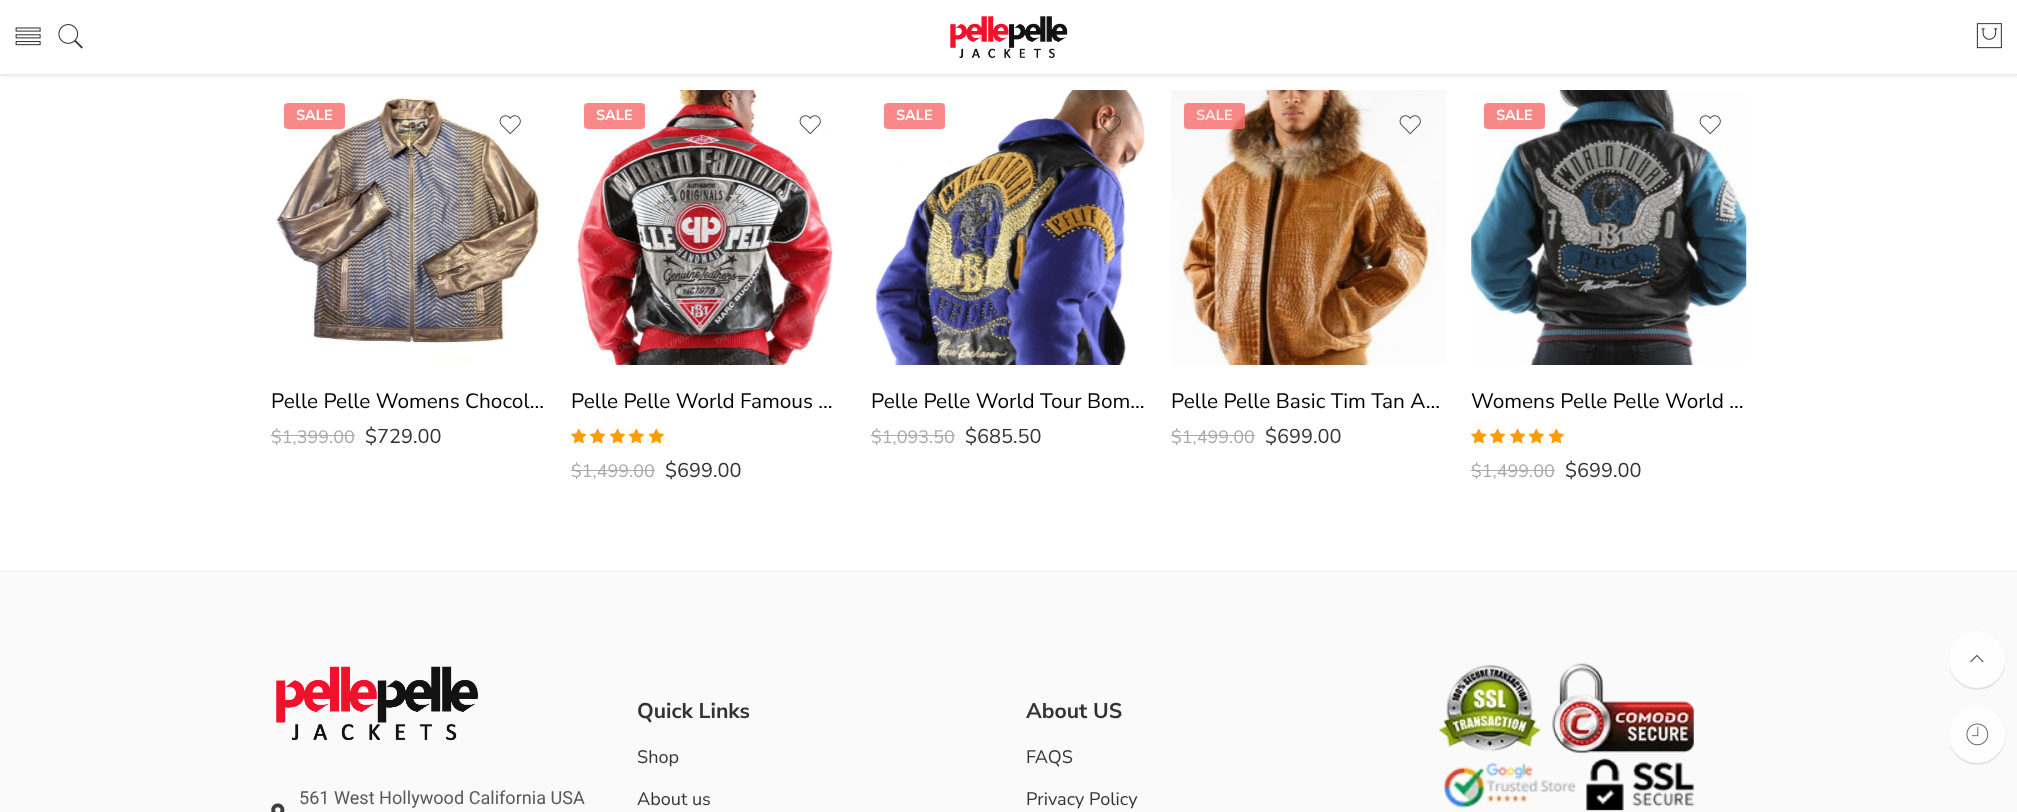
<svg xmlns="http://www.w3.org/2000/svg" width="2017" height="812">
<style>
.a{font:bold 14.5px Nunito Sans;fill:#fff}
.b{font:20.8px Nunito Sans;fill:#000}
.c{font:18px Nunito Sans;fill:#aaa}
.d{font:20px Nunito Sans;fill:#333}
.e{font:bold 14.5px Nunito Sans;fill:#fde7e7}
.f{font:18.1px Roboto;fill:#54595f}
.g{font:bold 21.25px Nunito Sans;fill:#333}
.h{font:18.1px Nunito Sans;fill:#333}
</style>
<rect width="100%" height="100%" fill="#fff"/>
<path fill="#0000001a" filter="blur(2px)" d="M0 1h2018v75H0z"/>
<path fill="#fff" d="M0 0h2017v74H0z"/>
<path fill="#e8e8e8" d="M0 74h2017v1H0z"/>
<image href="1.png" x="15" y="27" width="26" height="19"/>
<image href="2.png" x="58" y="24" width="25" height="25"/>
<image href="3.png" x="950" y="16" width="118" height="42"/>
<image href="4.png" x="1976" y="23" width="26" height="26"/>
<image href="5.png" x="276" y="96" width="266" height="269"/>
<rect fill="#f98988" x="284" y="103" width="61" height="26" rx="4"/>
<image href="6.png" x="499" y="115" width="22" height="20"/>
<path fill="#aaa" d="M271 435h84v1H271z"/>
<image href="7.png" x="576" y="90" width="259" height="275"/>
<rect fill="#f98988" x="584" y="103" width="61" height="26" rx="4"/>
<image href="8.png" x="799" y="115" width="22" height="20"/>
<image href="9.png" x="571" y="429" width="16" height="15"/>
<image href="10.png" x="590" y="429" width="15" height="15"/>
<image href="10.png" x="610" y="429" width="15" height="15"/>
<image href="11.png" x="629" y="429" width="15" height="15"/>
<image href="11.png" x="649" y="429" width="15" height="15"/>
<image href="12.png" x="571" y="429" width="16" height="15"/>
<image href="13.png" x="590" y="429" width="16" height="15"/>
<image href="13.png" x="610" y="429" width="16" height="15"/>
<image href="14.png" x="628" y="429" width="16" height="15"/>
<image href="14.png" x="648" y="429" width="16" height="15"/>
<path fill="#aaa" d="M571 470h84v1H571z"/>
<image href="15.png" x="876" y="90" width="269" height="275"/>
<rect fill="#f98988" x="884" y="103" width="61" height="26" rx="4"/>
<image href="16.png" x="1099" y="115" width="22" height="20"/>
<path fill="#aaa" d="M871 435h84v1H871z"/>
<image href="17.png" x="1171" y="90" width="275" height="275"/>
<rect fill="#f76b6acc" x="1184" y="103" width="61" height="26" rx="4"/>
<image href="18.png" x="1399" y="115" width="22" height="20"/>
<path fill="#aaa" d="M1171 435h84v1H1171z"/>
<image href="19.png" x="1471" y="90" width="276" height="275"/>
<rect fill="#f88888" x="1484" y="103" width="61" height="26" rx="4"/>
<image href="20.png" x="1699" y="115" width="22" height="20"/>
<image href="9.png" x="1471" y="429" width="16" height="15"/>
<image href="10.png" x="1490" y="429" width="15" height="15"/>
<image href="10.png" x="1510" y="429" width="15" height="15"/>
<image href="11.png" x="1529" y="429" width="15" height="15"/>
<image href="11.png" x="1549" y="429" width="15" height="15"/>
<image href="12.png" x="1471" y="429" width="16" height="15"/>
<image href="13.png" x="1490" y="429" width="16" height="15"/>
<image href="13.png" x="1510" y="429" width="16" height="15"/>
<image href="14.png" x="1528" y="429" width="16" height="15"/>
<image href="14.png" x="1548" y="429" width="16" height="15"/>
<path fill="#aaa" d="M1471 470h84v1H1471z"/>
<path fill="#fafafa" d="M0 573h2017v239H0z"/>
<path fill="#ececec" d="M0 571h2017v1H0z"/>
<image href="21.png" x="276" y="666" width="202" height="75"/>
<image href="22.png" x="271" y="803" width="14" height="9"/>
<image href="23.png" x="1438" y="663" width="256" height="148"/>
<rect fill="none" stroke="#f2f2f2" stroke-width="0.6" x="1949.3" y="631.3" width="56.4" height="57.4" rx="28.2"/>
<path fill="#00000014" d="M1949 663c1 27 36 37 51 15c4-5 5-11 5-17c-2 33-51 36-56 2z"/>
<rect fill="#fefefe" x="1949" y="631" width="56" height="57" rx="28"/>
<image href="24.png" x="1970" y="654" width="14" height="9"/>
<rect fill="none" stroke="#f2f2f2" stroke-width="0.6" x="1949.3" y="706.3" width="56.4" height="57.4" rx="28.2"/>
<path fill="#00000014" d="M1949 738c1 27 36 37 51 15c4-5 5-11 5-17c-2 33-51 36-56 2z"/>
<rect fill="#fefefe" x="1949" y="706" width="56" height="57" rx="28"/>
<image href="25.png" x="1966" y="723" width="23" height="23"/>
<text class="a" x="296" y="120">SALE</text>
<text class="b" x="271" y="408">Pelle Pelle Womens Chocol…</text>
<text class="c" x="271" y="443">$1,399.00</text>
<text class="d" x="365" y="443">$729.00</text>
<text class="a" x="596" y="120">SALE</text>
<text class="b" x="571" y="408">Pelle Pelle World Famous …</text>
<text class="c" x="571" y="477">$1,499.00</text>
<text class="d" x="665" y="477">$699.00</text>
<text class="a" x="896" y="120">SALE</text>
<text class="b" x="871" y="408">Pelle Pelle World Tour Bom…</text>
<text class="c" x="871" y="443">$1,093.50</text>
<text class="d" x="965" y="443">$685.50</text>
<text class="e" x="1196" y="120">SALE</text>
<text class="b" x="1171" y="408">Pelle Pelle Basic Tim Tan A…</text>
<text class="c" x="1171" y="443">$1,499.00</text>
<text class="d" x="1265" y="443">$699.00</text>
<text class="a" x="1496" y="120">SALE</text>
<text class="b" x="1471" y="408">Womens Pelle Pelle World …</text>
<text class="c" x="1471" y="477">$1,499.00</text>
<text class="d" x="1565" y="477">$699.00</text>
<text class="f" x="299" y="804">561 West Hollywood California USA</text>
<text class="g" x="637" y="718">Quick Links</text>
<text class="h" x="637" y="763">Shop</text>
<text class="h" x="637" y="805">About us</text>
<text class="g" x="1026" y="718">About US</text>
<text class="h" x="1026" y="763">FAQS</text>
<text class="h" x="1026" y="805">Privacy Policy</text>
</svg>
